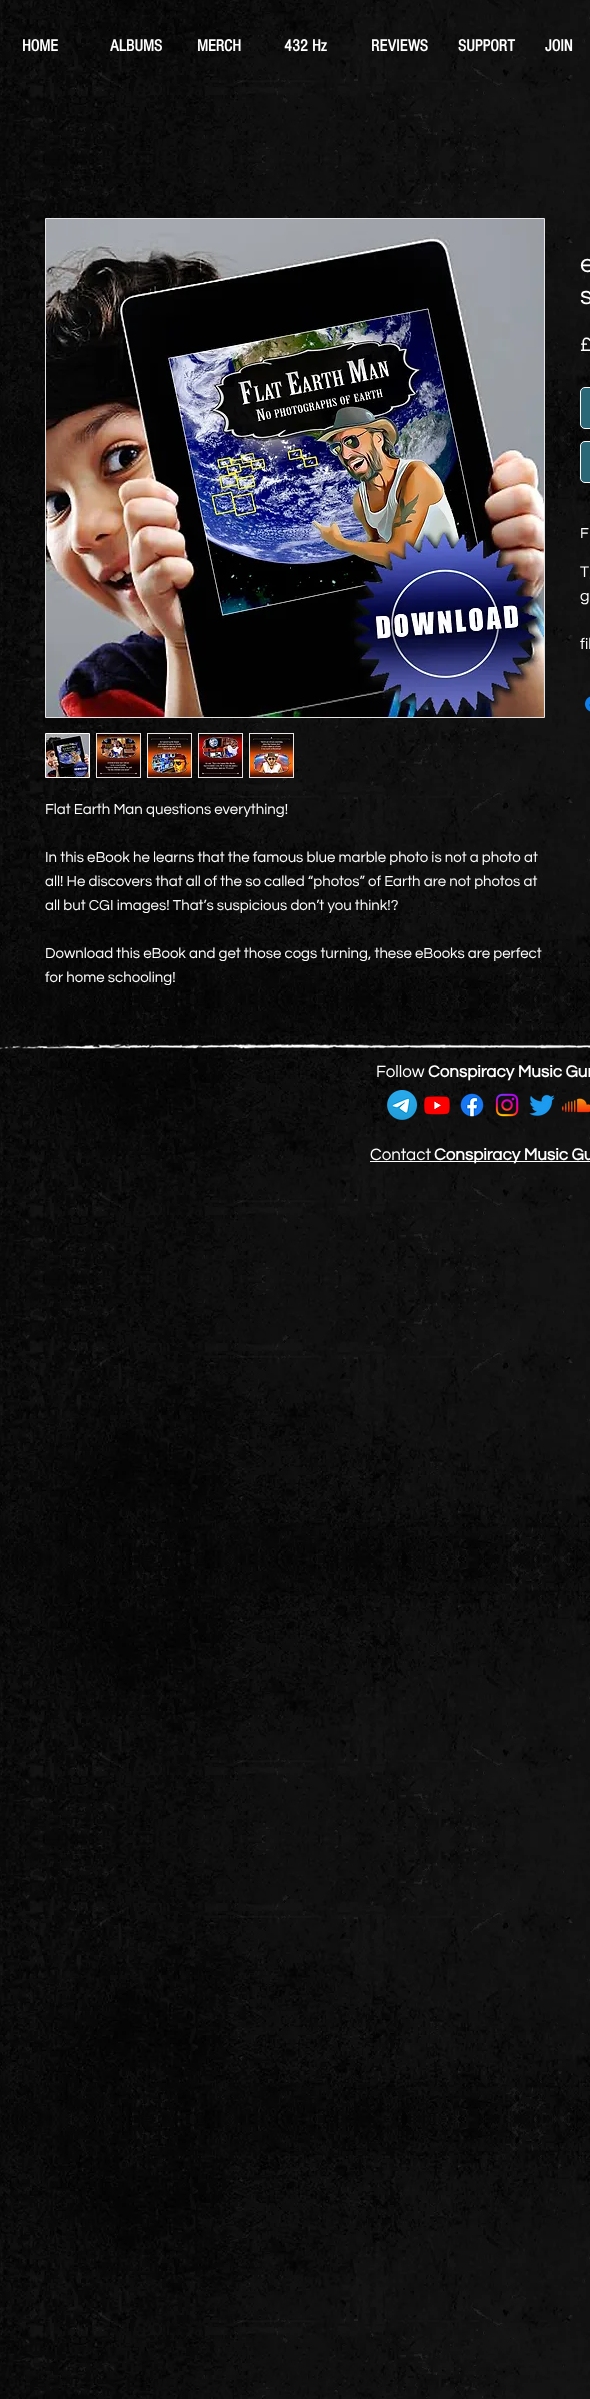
<svg xmlns="http://www.w3.org/2000/svg" width="590" height="2399">
<style>
.a{font:bold 17px 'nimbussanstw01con';fill:#fff}
.b{font:26px Questrial;fill:#fff}
.c{font:20px Questrial;fill:#fff}
.d{font:15px Questrial;fill:#fff}
.e{font:16px Questrial;fill:#fff}
.f{font:17px Questrial;fill:#fff}
.g{font:bold 17px Questrial;fill:#fff}
</style>
<rect width="100%" height="100%" fill="#fff"/>
<image href="1.png" x="0" y="0" width="590" height="2399"/>
<rect fill="#2a6877" stroke="#fff" x="580.5" y="387.5" width="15" height="41" rx="4.5"/>
<rect fill="#2a6877" stroke="#fff" x="580.5" y="441.5" width="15" height="41" rx="4.5"/>
<image href="2.png" x="585" y="696" width="5" height="16"/>
<path fill="none" stroke="#e8e6e6" d="M45.5 218.5h499v499H45.5z"/>
<image href="3.png" x="46" y="219" width="498" height="498"/>
<path fill="none" stroke="#fff" d="M45.5 733.5h44v44H45.5z"/>
<image href="4.png" x="46" y="734" width="43" height="43"/>
<path fill="#e8e6e6" d="M96 733h45v45H96z"/>
<image href="5.png" x="97" y="734" width="43" height="43"/>
<path fill="#e8e6e6" d="M147 733h45v45H147z"/>
<image href="6.png" x="148" y="734" width="43" height="43"/>
<path fill="#e8e6e6" d="M198 733h45v45H198z"/>
<image href="7.png" x="199" y="734" width="43" height="43"/>
<path fill="#e8e6e6" d="M249 733h45v45H249z"/>
<image href="8.png" x="250" y="734" width="43" height="43"/>
<image href="9.png" x="0" y="1043" width="590" height="7"/>
<image href="10.png" x="387" y="1090" width="30" height="30"/>
<image href="11.png" x="424" y="1096" width="26" height="19"/>
<image href="12.png" x="460" y="1093" width="24" height="24"/>
<image href="13.png" x="495" y="1093" width="24" height="24"/>
<image href="14.png" x="529" y="1094" width="26" height="22"/>
<image href="15.png" x="562" y="1098" width="28" height="15"/>
<path fill="#fff" d="M370 1161h220v1H370z"/>
<text class="a" x="22" y="51">HOME</text>
<text class="a" x="110" y="51">ALBUMS</text>
<text class="a" x="197" y="51">MERCH</text>
<text class="a" x="284" y="51">432 Hz</text>
<text class="a" x="371" y="51">REVIEWS</text>
<text class="a" x="458" y="51">SUPPORT</text>
<text class="a" x="545" y="51">JOIN</text>
<text class="b" x="580" y="272">e</text>
<text class="b" x="580" y="304">s</text>
<text class="c" x="580" y="351">£</text>
<text class="d" x="580" y="538">F</text>
<text class="e" x="580" y="577">T</text>
<text class="e" x="580" y="601">g</text>
<text class="e" x="580" y="649">fil</text>
<text class="d" x="45" y="814">Flat Earth Man questions everything!</text>
<text class="d" x="45" y="862">In this eBook he learns that the famous blue marble photo is not a photo at</text>
<text class="d" x="45" y="886">all! He discovers that all of the so called “photos” of Earth are not photos at</text>
<text class="d" x="45" y="910">all but CGI images! That’s suspicious don’t you think!?</text>
<text class="d" x="45" y="958">Download this eBook and get those cogs turning, these eBooks are perfect</text>
<text class="d" x="45" y="982">for home schooling!</text>
<text class="f" x="376" y="1077">Follow</text>
<text class="g" x="428" y="1077">Conspiracy Music Gur</text>
<text class="f" x="370" y="1160">Contact</text>
<text class="g" x="434" y="1160">Conspiracy Music Gu</text>
</svg>
